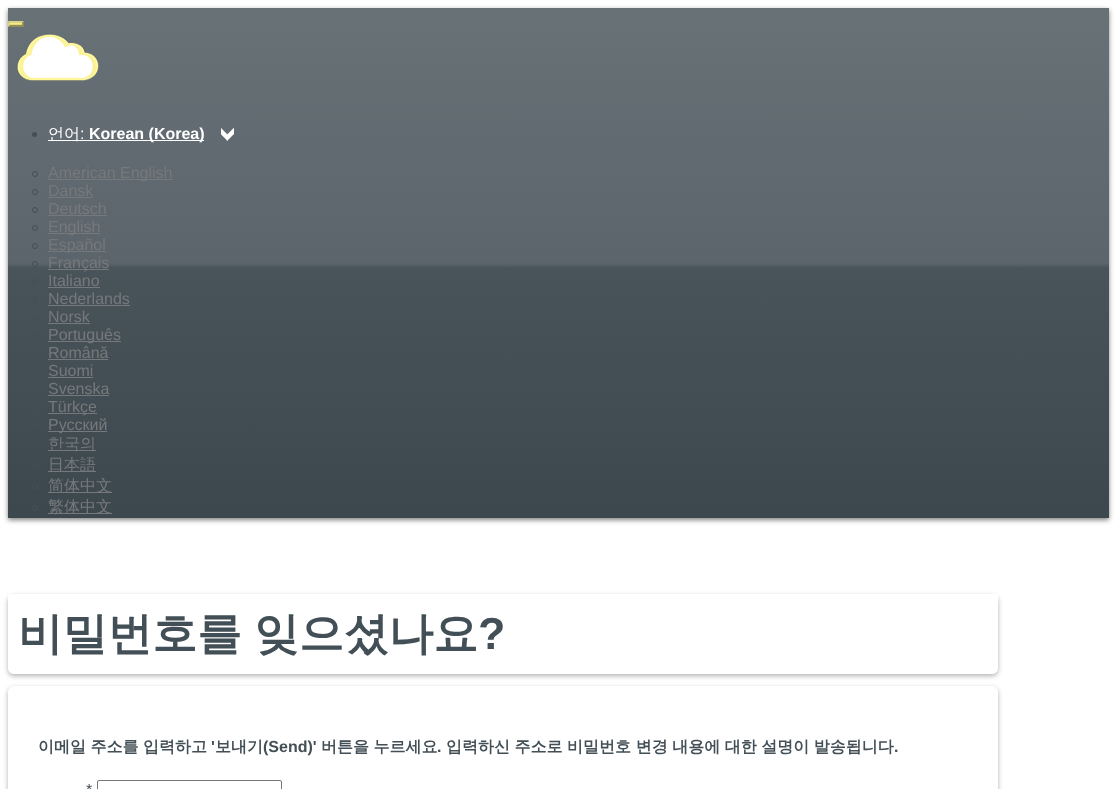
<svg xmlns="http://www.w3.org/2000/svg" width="1117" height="789">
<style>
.a{font:500 16px WenQuanYi Zen Hei;fill:#fff}
.b{font:16px Liberation Sans;fill:#fff}
.c{font:bold 16px Liberation Sans;fill:#fff}
.d{font:16px Liberation Sans;fill:#76797c}
.e{font:500 16px WenQuanYi Zen Hei;fill:#76797c}
.f{font:bold 44.75px WenQuanYi Zen Hei;fill:#434f56}
.g{font:bold 44.75px Liberation Sans;fill:#434f56}
.h{font:bold 16px WenQuanYi Zen Hei;fill:#434f56}
.i{font:bold 16px Liberation Sans;fill:#434f56}
.j{font:16px Liberation Sans;fill:#434f56}
</style>
<defs>
<linearGradient id="g1" gradientUnits="userSpaceOnUse" x1="559" y1="8" x2="559" y2="518"><stop offset="0" stop-color="#677176"/><stop offset="0.5" stop-color="#5c656c"/><stop offset="0.51" stop-color="#49545a"/><stop offset="1" stop-color="#3d484e"/></linearGradient>
<linearGradient id="g2" gradientUnits="userSpaceOnUse" x1="16" y1="23" x2="16" y2="25"><stop offset="0" stop-color="#fcf395"/><stop offset="1" stop-color="#dad380"/></linearGradient>
</defs>
<rect width="100%" height="100%" fill="#fff"/>
<path fill="#00000080" filter="blur(2.5px)" d="M8 10h1101v510H8z"/>
<path fill="url(#g1)" d="M8 8h1101v510H8z"/>
<path fill="url(#g2)" d="M8 23h16v2H8z"/>
<path fill="#dbd480" d="M8 21h16l-2 2h-12z"/>
<path fill="#928d55" d="M24 21v6l-2-2v-2z"/>
<path fill="#928d55" d="M24 27h-16l2-2h12z"/>
<path fill="#dbd480" d="M8 27v-6l2 2v2z"/>
<image href="1.png" x="17" y="34" width="82" height="47"/>
<circle fill="#434f56" cx="34.5" cy="134.5" r="2.5"/>
<path fill="#fff" d="M48 140h156v1H48z"/>
<image href="2.png" x="221" y="128" width="13" height="13"/>
<circle fill="none" stroke="#434f56" cx="35" cy="174" r="2.5"/>
<path fill="#76797c" d="M48 179h125v1H48z"/>
<circle fill="none" stroke="#434f56" cx="35" cy="192" r="2.5"/>
<path fill="#76797c" d="M48 197h45v1H48z"/>
<circle fill="none" stroke="#434f56" cx="35" cy="210" r="2.5"/>
<path fill="#76797c" d="M48 215h59v1H48z"/>
<circle fill="none" stroke="#434f56" cx="35" cy="228" r="2.5"/>
<path fill="#76797c" d="M48 233h52v1H48z"/>
<circle fill="none" stroke="#434f56" cx="35" cy="246" r="2.5"/>
<path fill="#76797c" d="M48 251h58v1H48z"/>
<circle fill="none" stroke="#434f56" cx="35" cy="264" r="2.5"/>
<path fill="#76797c" d="M48 269h61v1H48z"/>
<circle fill="none" stroke="#434f56" cx="35" cy="282" r="2.5"/>
<path fill="#76797c" d="M48 287h52v1H48z"/>
<circle fill="none" stroke="#434f56" cx="35" cy="300" r="2.5"/>
<path fill="#76797c" d="M48 305h82v1H48z"/>
<circle fill="none" stroke="#434f56" cx="35" cy="318" r="2.5"/>
<path fill="#76797c" d="M48 323h42v1H48z"/>
<circle fill="none" stroke="#434f56" cx="35" cy="336" r="2.5"/>
<path fill="#76797c" d="M48 341h73v1H48z"/>
<path fill="#76797c" d="M48 359h60v1H48z"/>
<path fill="#76797c" d="M48 377h45v1H48z"/>
<path fill="#76797c" d="M48 395h61v1H48z"/>
<circle fill="none" stroke="#434f56" cx="35" cy="408" r="2.5"/>
<path fill="#76797c" d="M48 413h49v1H48z"/>
<circle fill="none" stroke="#434f56" cx="35" cy="426" r="2.5"/>
<path fill="#76797c" d="M48 431h59v1H48z"/>
<circle fill="none" stroke="#434f56" cx="35" cy="445" r="2.5"/>
<path fill="#76797c" d="M48 450h48v1H48z"/>
<circle fill="none" stroke="#434f56" cx="35" cy="466" r="2.5"/>
<path fill="#76797c" d="M48 471h48v1H48z"/>
<circle fill="none" stroke="#434f56" cx="35" cy="487" r="2.5"/>
<path fill="#76797c" d="M48 492h64v1H48z"/>
<circle fill="none" stroke="#434f56" cx="35" cy="508" r="2.5"/>
<path fill="#76797c" d="M48 513h64v1H48z"/>
<rect fill="#0000004d" filter="blur(2.5px)" x="8" y="596" width="990" height="80" rx="6"/>
<path fill="#fff" d="M8 594h990v74c0 3.5-2.5 6-6 6h-978c-3.5 0-6-2.5-6-6z"/>
<rect fill="#0000004d" filter="blur(2.5px)" x="8" y="688" width="990" height="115" rx="6"/>
<rect fill="#fff" x="8" y="686" width="990" height="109" rx="6"/>
<rect fill="none" stroke="#767676" x="97.5" y="780.5" width="184" height="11" rx="1.5"/>
<text class="a" x="48" y="139">언어</text>
<text class="b" x="80" y="139">:</text>
<text class="c" x="89" y="139">Korean (Korea)</text>
<text class="d" x="48" y="178">American English</text>
<text class="d" x="48" y="196">Dansk</text>
<text class="d" x="48" y="214">Deutsch</text>
<text class="d" x="48" y="232">English</text>
<text class="d" x="48" y="250">Español</text>
<text class="d" x="48" y="268">Français</text>
<text class="d" x="48" y="286">Italiano</text>
<text class="d" x="48" y="304">Nederlands</text>
<text class="d" x="48" y="322">Norsk</text>
<text class="d" x="48" y="340">Português</text>
<text class="d" x="48" y="358">Română</text>
<text class="d" x="48" y="376">Suomi</text>
<text class="d" x="48" y="394">Svenska</text>
<text class="d" x="48" y="412">Türkçe</text>
<text class="d" x="48" y="430">Русский</text>
<text class="e" x="48" y="449">한국의</text>
<text class="e" x="48" y="470">日本語</text>
<text class="e" x="48" y="491">简体中文</text>
<text class="e" x="48" y="512">繁体中文</text>
<text class="f" x="18" y="649" word-spacing="-1">비밀번호를 잊으셨나요</text>
<text class="g" x="478" y="649">?</text>
<text class="h" x="38" y="752" word-spacing="-0.25">이메일 주소를 입력하고</text>
<text class="i" x="211" y="752">'</text>
<text class="h" x="215" y="752">보내기</text>
<text class="i" x="263" y="752">(Send)'</text>
<text class="h" x="321" y="752" word-spacing="-0.25">버튼을 누르세요</text>
<text class="h" x="446" y="752" word-spacing="-0.25">입력하신 주소로 비밀번호 변경 내용에 대한 설명이 발송됩니다</text>
<text class="i" x="437" y="752">.</text>
<text class="i" x="894" y="752">.</text>
<text class="j" x="86" y="795">*</text>
</svg>
